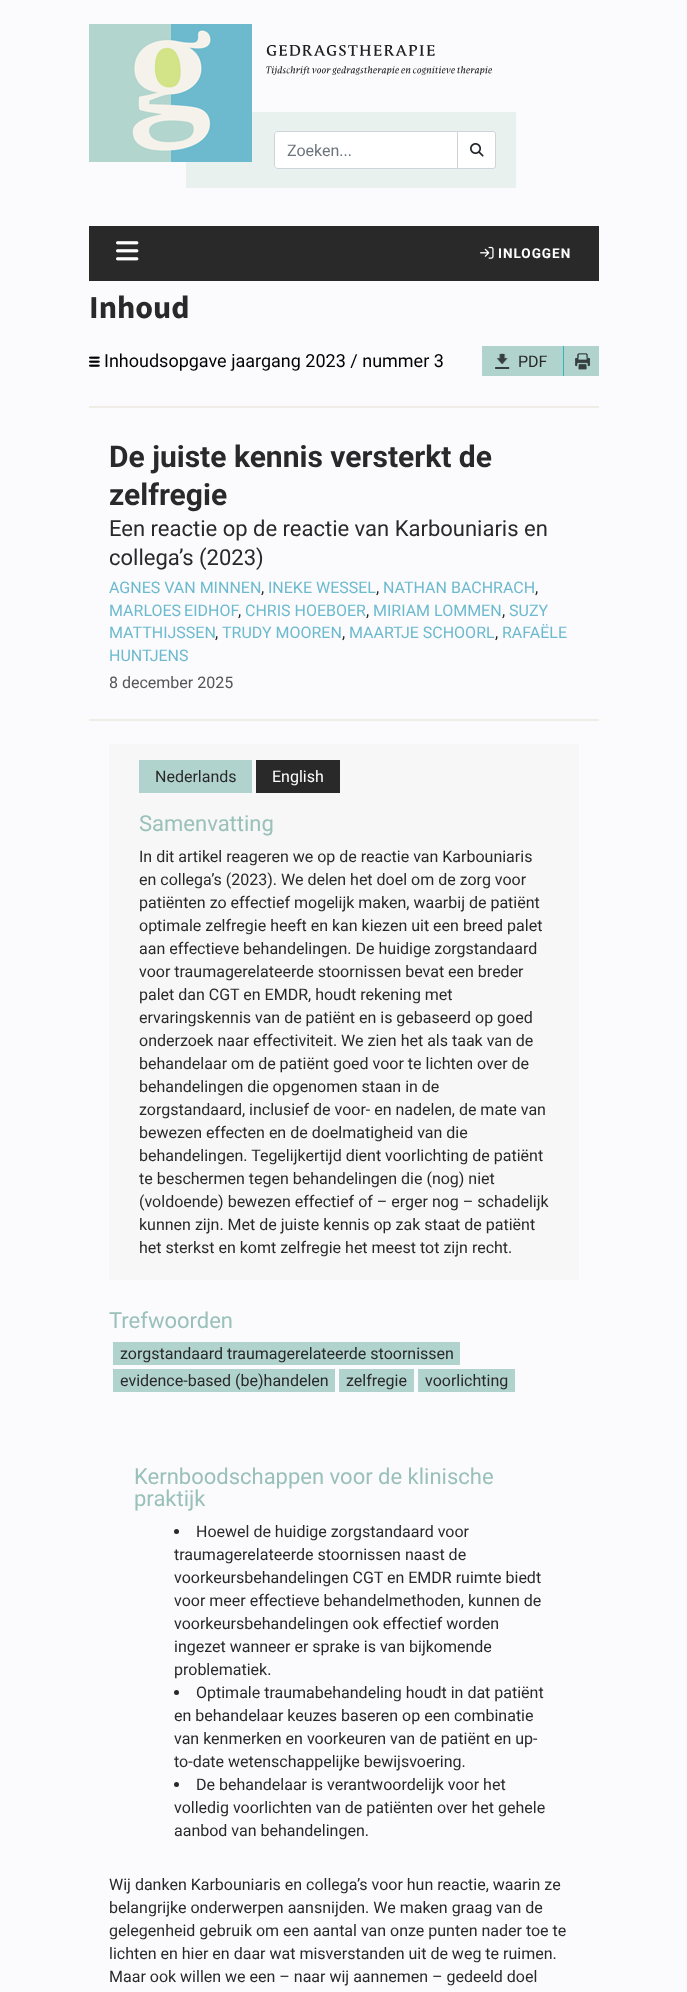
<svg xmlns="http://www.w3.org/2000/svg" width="687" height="1992">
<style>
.a{font:16px Roboto;fill:#6c757d}
.b{font:bold 13.5px Roboto;letter-spacing:1px;fill:#fff}
.c{font:bold 32px Source Sans Pro;fill:#292929}
.d{font:18px Roboto;fill:#000}
.e{font:16px Roboto;fill:#292929}
.f{font:bold 30px Roboto;fill:#292929}
.g{font:22px Roboto;fill:#292929}
.h{font:16px Roboto;fill:#6dbace}
.i{font:16px Roboto;fill:#555}
.j{font:16px Roboto;fill:#fff}
.k{font:22px Roboto;fill:#99c0b9}
</style>
<rect width="100%" height="100%" fill="#fbfbfe"/>
<path fill="#e9f1ee" d="M186 112h330v76H186z"/>
<image href="1.png" x="89" y="24" width="163" height="138"/>
<image href="2.png" x="266" y="45" width="226" height="30"/>
<path fill="#fff" stroke="#ced4da" d="M278 131.5h179.5v37h-179.5c-2 0-3.5-1.5-3.5-3.5v-30c0-2 1.5-3.5 3.5-3.5z"/>
<path fill="#fff" stroke="#ced4da" d="M457.5 131.5h35.5c1.5 0 2.5 1 2.5 2.5v32c0 1.5-1 2.5-2.5 2.5h-35.5z"/>
<image href="3.png" x="470" y="143" width="14" height="14"/>
<path fill="#292929" d="M89 226h510v55H89z"/>
<image href="4.png" x="116" y="241" width="23" height="20"/>
<image href="5.png" x="480" y="246" width="14" height="13"/>
<path fill="#efede5" d="M89 406h510v2H89z"/>
<image href="6.png" x="89" y="356" width="11" height="11"/>
<path fill="#b1d3cd" d="M482 346h81v30H482z"/>
<image href="7.png" x="495" y="353" width="15" height="16"/>
<path fill="#33b5bb" d="M563 346h1v30H563z"/>
<path fill="#b1d3cd" d="M564 346h35v30H564z"/>
<image href="8.png" x="575" y="353" width="16" height="17"/>
<path fill="#efede5" d="M89 719h510v2H89z"/>
<path fill="#f7f7f7" d="M109 744h470v536H109z"/>
<path fill="#b1d3cd" d="M139 760h113v33H139z"/>
<path fill="#292929" d="M256 760h84v33H256z"/>
<path fill="#b1d3cd" d="M113 1342h347v23H113z"/>
<path fill="#b1d3cd" d="M113 1369h222v23H113z"/>
<path fill="#b1d3cd" d="M339 1369h75v23H339z"/>
<path fill="#b1d3cd" d="M418 1369h97v23H418z"/>
<circle fill="#292929" cx="176.5" cy="1531.5" r="2.5"/>
<circle fill="#292929" cx="176.5" cy="1692.5" r="2.5"/>
<circle fill="#292929" cx="176.5" cy="1784.5" r="2.5"/>
<text class="a" x="287" y="156">Zoeken...</text>
<text class="b" x="498" y="258">INLOGGEN</text>
<text class="c" x="89" y="318">Inhoud</text>
<text class="d" x="104" y="367">Inhoudsopgave jaargang 2023 / nummer 3</text>
<text class="e" x="518" y="367">PDF</text>
<text class="f" x="109" y="467">De juiste kennis versterkt de</text>
<text class="f" x="109" y="505">zelfregie</text>
<text class="g" x="109" y="536">Een reactie op de reactie van Karbouniaris en</text>
<text class="g" x="109" y="565">collega’s (2023)</text>
<text class="h" x="109" y="593">AGNES VAN MINNEN</text>
<text class="e" x="261" y="593">,</text>
<text class="h" x="268" y="593">INEKE WESSEL</text>
<text class="e" x="376" y="593">,</text>
<text class="h" x="383" y="593">NATHAN BACHRACH</text>
<text class="e" x="535" y="593">,</text>
<text class="h" x="109" y="616" word-spacing="-1">MARLOES EIDHOF</text>
<text class="e" x="238" y="616">,</text>
<text class="h" x="245" y="616">CHRIS HOEBOER</text>
<text class="e" x="366" y="616">,</text>
<text class="h" x="373" y="616">MIRIAM LOMMEN</text>
<text class="e" x="502" y="616">,</text>
<text class="h" x="509" y="616">SUZY</text>
<text class="h" x="109" y="638">MATTHIJSSEN</text>
<text class="e" x="215" y="638">,</text>
<text class="h" x="222" y="638">TRUDY MOOREN</text>
<text class="e" x="342" y="638">,</text>
<text class="h" x="349" y="638">MAARTJE SCHOORL</text>
<text class="e" x="495" y="638">,</text>
<text class="h" x="502" y="638">RAFAËLE</text>
<text class="h" x="109" y="661">HUNTJENS</text>
<text class="i" x="109" y="688">8 december 2025</text>
<text class="e" x="155" y="782">Nederlands</text>
<text class="j" x="272" y="782">English</text>
<text class="k" x="139" y="831">Samenvatting</text>
<text class="e" x="139" y="862">In dit artikel reageren we op de reactie van Karbouniaris</text>
<text class="e" x="139" y="885">en collega’s (2023). We delen het doel om de zorg voor</text>
<text class="e" x="139" y="908">patiënten zo effectief mogelijk maken, waarbij de patiënt</text>
<text class="e" x="139" y="931">optimale zelfregie heeft en kan kiezen uit een breed palet</text>
<text class="e" x="139" y="954">aan effectieve behandelingen. De huidige zorgstandaard</text>
<text class="e" x="139" y="977">voor traumagerelateerde stoornissen bevat een breder</text>
<text class="e" x="139" y="1000">palet dan CGT en EMDR, houdt rekening met</text>
<text class="e" x="139" y="1023">ervaringskennis van de patiënt en is gebaseerd op goed</text>
<text class="e" x="139" y="1046">onderzoek naar effectiviteit. We zien het als taak van de</text>
<text class="e" x="139" y="1069">behandelaar om de patiënt goed voor te lichten over de</text>
<text class="e" x="139" y="1092">behandelingen die opgenomen staan in de</text>
<text class="e" x="139" y="1115">zorgstandaard, inclusief de voor- en nadelen, de mate van</text>
<text class="e" x="139" y="1138">bewezen effecten en de doelmatigheid van die</text>
<text class="e" x="139" y="1161">behandelingen. Tegelijkertijd dient voorlichting de patiënt</text>
<text class="e" x="139" y="1184">te beschermen tegen behandelingen die (nog) niet</text>
<text class="e" x="139" y="1207">(voldoende) bewezen effectief of – erger nog – schadelijk</text>
<text class="e" x="139" y="1230">kunnen zijn. Met de juiste kennis op zak staat de patiënt</text>
<text class="e" x="139" y="1253">het sterkst en komt zelfregie het meest tot zijn recht.</text>
<text class="k" x="109" y="1328">Trefwoorden</text>
<text class="e" x="120" y="1359">zorgstandaard traumagerelateerde stoornissen</text>
<text class="e" x="120" y="1386">evidence-based (be)handelen</text>
<text class="e" x="346" y="1386">zelfregie</text>
<text class="e" x="425" y="1386">voorlichting</text>
<text class="k" x="134" y="1484">Kernboodschappen voor de klinische</text>
<text class="k" x="134" y="1506">praktijk</text>
<text class="e" x="196" y="1537">Hoewel de huidige zorgstandaard voor</text>
<text class="e" x="174" y="1560">traumagerelateerde stoornissen naast de</text>
<text class="e" x="174" y="1583">voorkeursbehandelingen CGT en EMDR ruimte biedt</text>
<text class="e" x="174" y="1606">voor meer effectieve behandelmethoden, kunnen de</text>
<text class="e" x="174" y="1629">voorkeursbehandelingen ook effectief worden</text>
<text class="e" x="174" y="1652">ingezet wanneer er sprake is van bijkomende</text>
<text class="e" x="174" y="1675">problematiek.</text>
<text class="e" x="196" y="1698">Optimale traumabehandeling houdt in dat patiënt</text>
<text class="e" x="174" y="1721">en behandelaar keuzes baseren op een combinatie</text>
<text class="e" x="174" y="1744">van kenmerken en voorkeuren van de patiënt en up-</text>
<text class="e" x="174" y="1767">to-date wetenschappelijke bewijsvoering.</text>
<text class="e" x="196" y="1790">De behandelaar is verantwoordelijk voor het</text>
<text class="e" x="174" y="1813">volledig voorlichten van de patiënten over het gehele</text>
<text class="e" x="174" y="1836">aanbod van behandelingen.</text>
<text class="e" x="109" y="1890">Wij danken Karbouniaris en collega’s voor hun reactie, waarin ze</text>
<text class="e" x="109" y="1913">belangrijke onderwerpen aansnijden. We maken graag van de</text>
<text class="e" x="109" y="1936">gelegenheid gebruik om een aantal van onze punten nader toe te</text>
<text class="e" x="109" y="1959">lichten en hier en daar wat misverstanden uit de weg te ruimen.</text>
<text class="e" x="109" y="1982">Maar ook willen we een – naar wij aannemen – gedeeld doel</text>
</svg>
